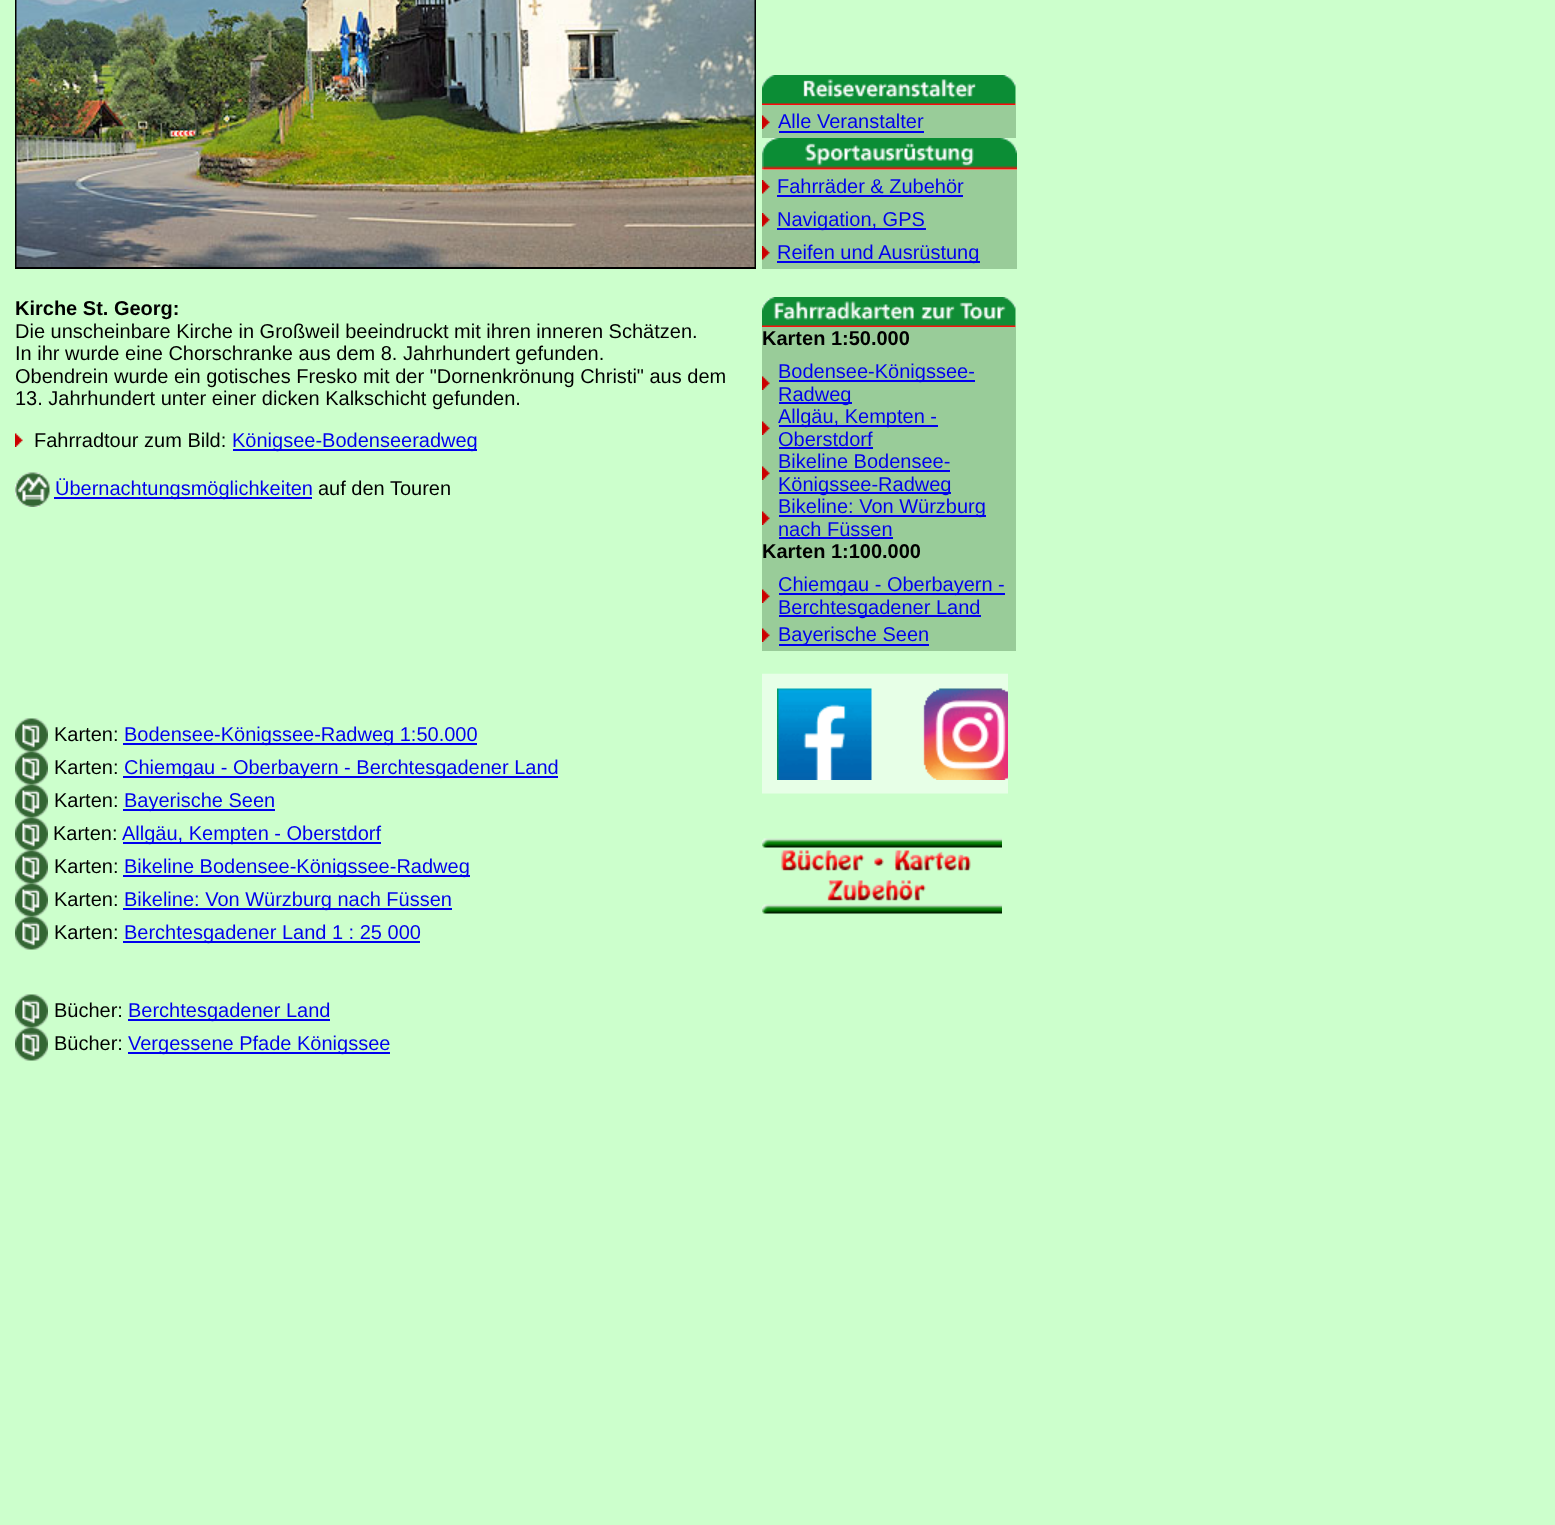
<svg xmlns="http://www.w3.org/2000/svg" width="1555" height="1525">
<style>
.a{font:20px Liberation Sans;fill:#00e}
.b{font:bold 20px Liberation Sans;fill:#000}
.c{font:20px Liberation Sans;fill:#000}
</style>
<rect width="100%" height="100%" fill="#cfc"/>
<path fill="none" stroke="#000" stroke-width="2" d="M16 -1h739v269H16z"/>
<image href="1.png" x="16" y="0" width="739" height="267"/>
<image href="2.png" x="762" y="75" width="254" height="30"/>
<path fill="#9c9" d="M762 105h254v33H762z"/>
<image href="3.png" x="762" y="115" width="8" height="14"/>
<path fill="#00e" d="M779 131h145v2H779z"/>
<image href="4.png" x="762" y="138" width="255" height="32"/>
<path fill="#9c9" d="M762 170h255v33H762z"/>
<image href="5.png" x="762" y="180" width="8" height="14"/>
<path fill="#00e" d="M777 195h186v2H777z"/>
<path fill="#9c9" d="M762 203h255v33H762z"/>
<image href="5.png" x="762" y="213" width="8" height="14"/>
<path fill="#00e" d="M777 228h149v2H777z"/>
<path fill="#9c9" d="M762 236h255v33H762z"/>
<image href="5.png" x="762" y="246" width="8" height="14"/>
<path fill="#00e" d="M777 261h203v2H777z"/>
<image href="6.png" x="15" y="433" width="8" height="14"/>
<path fill="#00e" d="M233 449h244v2H233z"/>
<image href="7.png" x="15" y="472" width="35" height="35"/>
<path fill="#00e" d="M54 497h258v2H54z"/>
<image href="8.png" x="15" y="718" width="33" height="34"/>
<path fill="#00e" d="M123 743h354v2H123z"/>
<image href="9.png" x="15" y="751" width="33" height="34"/>
<path fill="#00e" d="M123 776h435v2H123z"/>
<image href="9.png" x="15" y="784" width="33" height="34"/>
<path fill="#00e" d="M123 809h152v2H123z"/>
<image href="9.png" x="15" y="817" width="33" height="34"/>
<path fill="#00e" d="M123 842h258v2H123z"/>
<image href="9.png" x="15" y="850" width="33" height="34"/>
<path fill="#00e" d="M123 875h347v2H123z"/>
<image href="9.png" x="15" y="883" width="33" height="34"/>
<path fill="#00e" d="M123 908h329v2H123z"/>
<image href="9.png" x="15" y="916" width="33" height="34"/>
<path fill="#00e" d="M123 941h297v2H123z"/>
<image href="8.png" x="15" y="994" width="33" height="34"/>
<path fill="#00e" d="M128 1019h202v2H128z"/>
<image href="9.png" x="15" y="1027" width="33" height="34"/>
<path fill="#00e" d="M128 1052h262v2H128z"/>
<image href="10.png" x="762" y="297" width="254" height="30"/>
<path fill="#9c9" d="M762 327h254v33H762z"/>
<path fill="#9c9" d="M762 360h254v45H762z"/>
<image href="3.png" x="762" y="376" width="8" height="14"/>
<path fill="#00e" d="M779 380h196v2H779z"/>
<path fill="#00e" d="M779 402h73v2H779z"/>
<path fill="#9c9" d="M762 405h254v45H762z"/>
<image href="3.png" x="762" y="421" width="8" height="14"/>
<path fill="#00e" d="M779 425h159v2H779z"/>
<path fill="#00e" d="M779 447h94v2H779z"/>
<path fill="#9c9" d="M762 450h254v45H762z"/>
<image href="3.png" x="762" y="466" width="8" height="14"/>
<path fill="#00e" d="M779 470h171v2H779z"/>
<path fill="#00e" d="M779 492h172v2H779z"/>
<path fill="#9c9" d="M762 495h254v78H762z"/>
<image href="3.png" x="762" y="511" width="8" height="14"/>
<path fill="#00e" d="M779 515h207v2H779z"/>
<path fill="#00e" d="M779 537h114v2H779z"/>
<path fill="#9c9" d="M762 573h254v45H762z"/>
<image href="3.png" x="762" y="589" width="8" height="14"/>
<path fill="#00e" d="M779 593h226v2H779z"/>
<path fill="#00e" d="M779 615h202v2H779z"/>
<path fill="#9c9" d="M762 618h254v33H762z"/>
<image href="3.png" x="762" y="628" width="8" height="14"/>
<path fill="#00e" d="M779 644h150v2H779z"/>
<image href="11.png" x="762" y="673" width="246" height="121"/>
<image href="12.png" x="762" y="838" width="240" height="76"/>
<text class="a" x="778" y="128">Alle Veranstalter</text>
<text class="a" x="777" y="193">Fahrräder &amp; Zubehör</text>
<text class="a" x="777" y="226">Navigation, GPS</text>
<text class="a" x="777" y="259">Reifen und Ausrüstung</text>
<text class="b" x="15" y="315">Kirche St. Georg:</text>
<text class="c" x="15" y="338">Die unscheinbare Kirche in Großweil beeindruckt mit ihren inneren Schätzen.</text>
<text class="c" x="15" y="360">In ihr wurde eine Chorschranke aus dem 8. Jahrhundert gefunden.</text>
<text class="c" x="15" y="383">Obendrein wurde ein gotisches Fresko mit der "Dornenkrönung Christi" aus dem</text>
<text class="c" x="15" y="405">13. Jahrhundert unter einer dicken Kalkschicht gefunden.</text>
<text class="c" x="34" y="447">Fahrradtour zum Bild:</text>
<text class="a" x="232" y="447">Königsee-Bodenseeradweg</text>
<text class="a" x="55" y="495">Übernachtungsmöglichkeiten</text>
<text class="c" x="318" y="495">auf den Touren</text>
<text class="c" x="54" y="741">Karten:</text>
<text class="a" x="124" y="741">Bodensee-Königssee-Radweg 1:50.000</text>
<text class="c" x="54" y="774">Karten:</text>
<text class="a" x="124" y="774">Chiemgau - Oberbayern - Berchtesgadener Land</text>
<text class="c" x="54" y="807">Karten:</text>
<text class="a" x="124" y="807">Bayerische Seen</text>
<text class="c" x="53" y="840">Karten:</text>
<text class="a" x="122" y="840">Allgäu, Kempten - Oberstdorf</text>
<text class="c" x="54" y="873">Karten:</text>
<text class="a" x="124" y="873">Bikeline Bodensee-Königssee-Radweg</text>
<text class="c" x="54" y="906">Karten:</text>
<text class="a" x="124" y="906">Bikeline: Von Würzburg nach Füssen</text>
<text class="c" x="54" y="939">Karten:</text>
<text class="a" x="124" y="939">Berchtesgadener Land 1 : 25 000</text>
<text class="c" x="54" y="1017">Bücher:</text>
<text class="a" x="128" y="1017">Berchtesgadener Land</text>
<text class="c" x="54" y="1050">Bücher:</text>
<text class="a" x="128" y="1050">Vergessene Pfade Königssee</text>
<text class="b" x="762" y="345">Karten 1:50.000</text>
<text class="a" x="778" y="378">Bodensee-Königssee-</text>
<text class="a" x="778" y="401">Radweg</text>
<text class="a" x="778" y="423">Allgäu, Kempten -</text>
<text class="a" x="778" y="446">Oberstdorf</text>
<text class="a" x="778" y="468">Bikeline Bodensee-</text>
<text class="a" x="778" y="491">Königssee-Radweg</text>
<text class="a" x="778" y="513">Bikeline: Von Würzburg</text>
<text class="a" x="778" y="536">nach Füssen</text>
<text class="b" x="762" y="558">Karten 1:100.000</text>
<text class="a" x="778" y="591">Chiemgau - Oberbayern -</text>
<text class="a" x="778" y="614">Berchtesgadener Land</text>
<text class="a" x="778" y="641">Bayerische Seen</text>
</svg>
